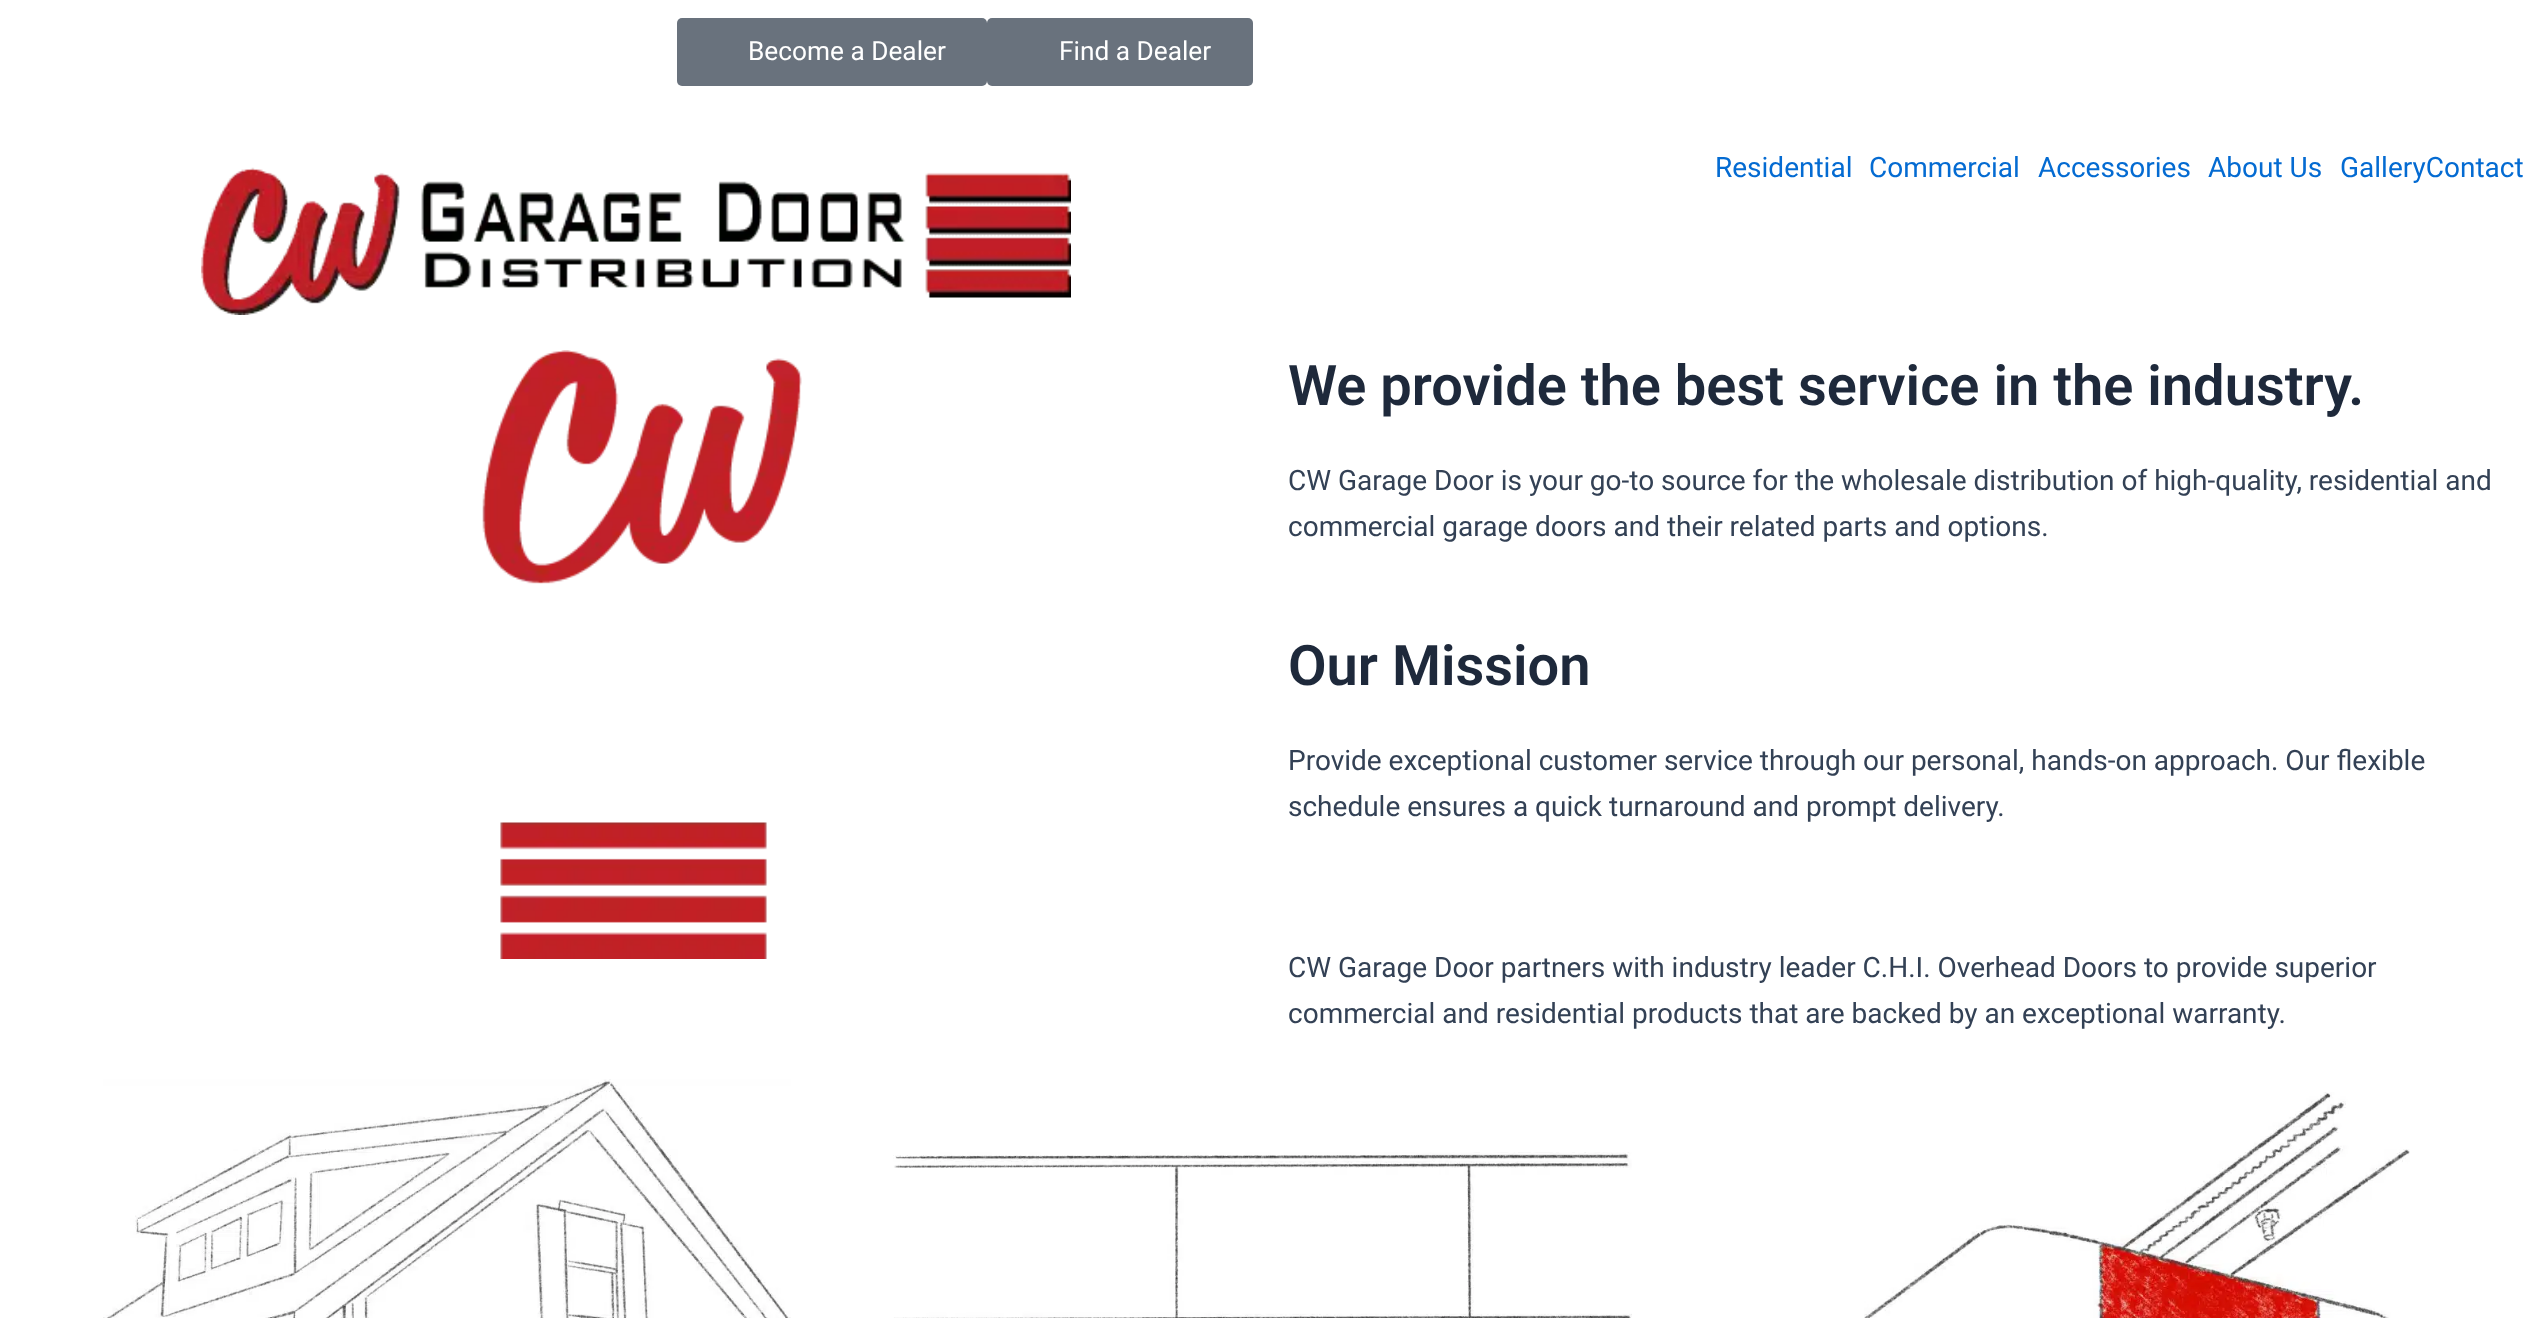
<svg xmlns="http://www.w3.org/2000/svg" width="2541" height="1318">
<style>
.a{font:26.25px Roboto;fill:#fff}
.b{font:28px Roboto;fill:#046bd2}
.c{font:600 56px Roboto;fill:#1e293b}
.d{font:28px Roboto;fill:#334155}
</style>
<rect width="100%" height="100%" fill="#fff"/>
<rect fill="#69727d" x="677" y="18" width="310" height="68" rx="5"/>
<rect fill="#69727d" x="987" y="18" width="266" height="68" rx="5"/>
<image href="1.png" x="201" y="167" width="870" height="148"/>
<image href="2.png" x="482" y="350" width="320" height="609"/>
<image href="3.png" x="103" y="1079" width="688" height="239"/>
<image href="4.png" x="893" y="1152" width="739" height="166"/>
<image href="5.png" x="1864" y="1092" width="546" height="226"/>
<text class="a" x="748" y="60">Become a Dealer</text>
<text class="a" x="1059" y="60">Find a Dealer</text>
<text class="b" x="1715" y="177">Residential</text>
<text class="b" x="1869" y="177">Commercial</text>
<text class="b" x="2038" y="177">Accessories</text>
<text class="b" x="2208" y="177">About Us</text>
<text class="b" x="2340" y="177">GalleryContact</text>
<text class="c" x="1288" y="405">We provide the best service in the industry.</text>
<text class="d" x="1288" y="490">CW Garage Door is your go-to source for the wholesale distribution of high-quality, residential and</text>
<text class="d" x="1288" y="536">commercial garage doors and their related parts and options.</text>
<text class="c" x="1288" y="685">Our Mission</text>
<text class="d" x="1288" y="770">Provide exceptional customer service through our personal, hands-on approach. Our flexible</text>
<text class="d" x="1288" y="816">schedule ensures a quick turnaround and prompt delivery.</text>
<text class="d" x="1288" y="977">CW Garage Door partners with industry leader C.H.I. Overhead Doors to provide superior</text>
<text class="d" x="1288" y="1023">commercial and residential products that are backed by an exceptional warranty.</text>
</svg>
